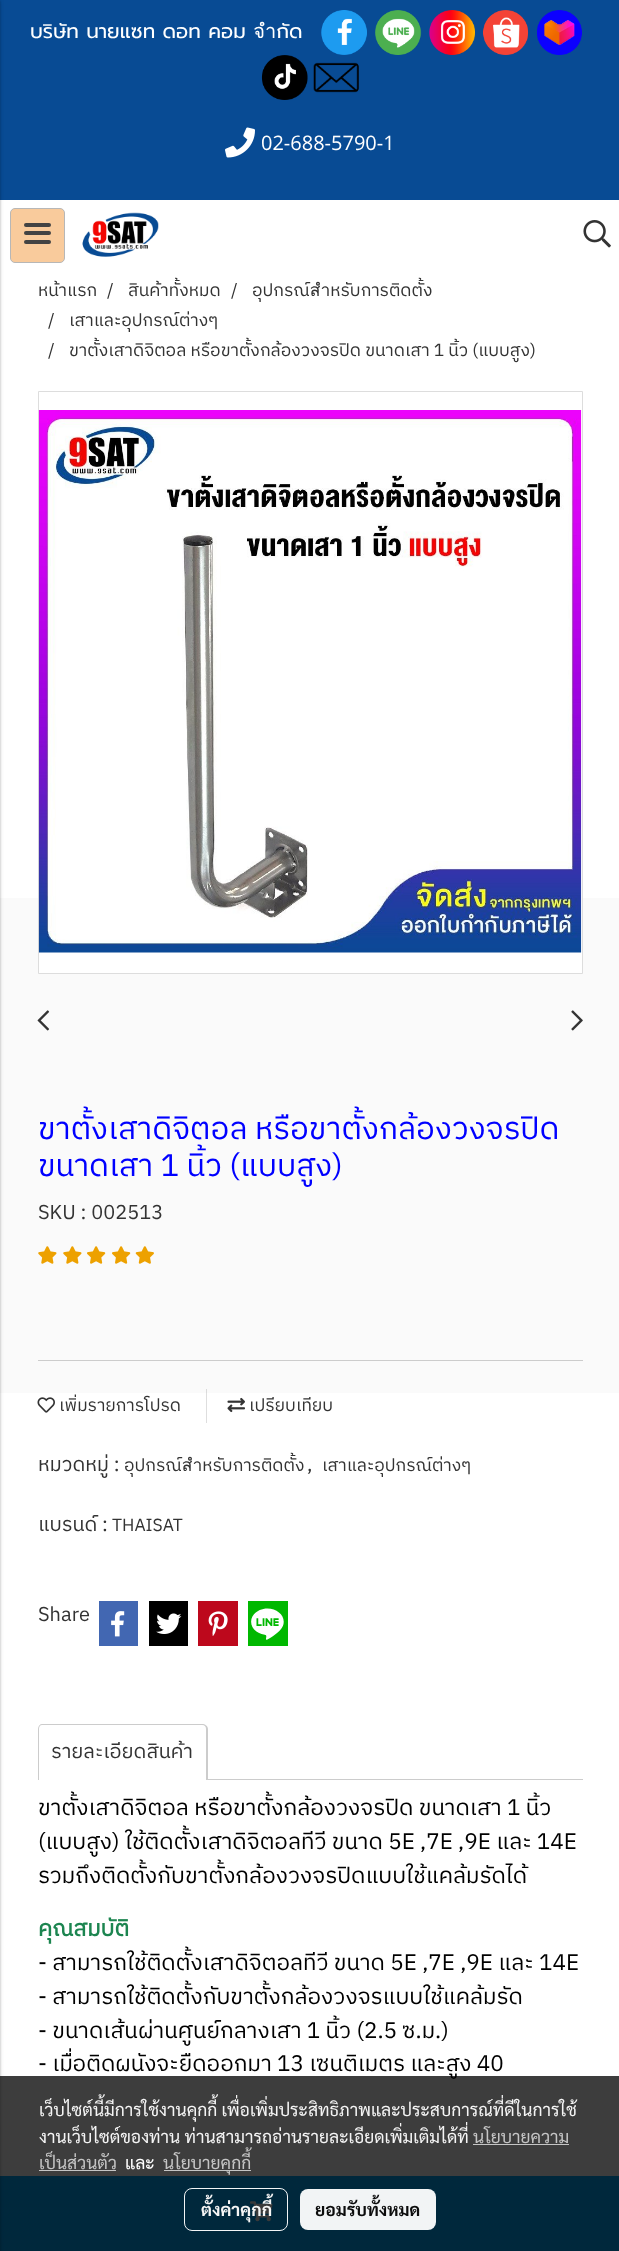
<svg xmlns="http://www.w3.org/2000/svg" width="619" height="2251">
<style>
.a{font:20px Prompt;fill:#fff}
.b{font:20px Open Sans;fill:#fff}
.c{font:17.5px IBM Plex Sans Thai;fill:#333}
.d{font:31.25px IBM Plex Sans Thai;fill:#00f}
.e{font:20px IBM Plex Sans Thai;fill:#333}
.f{font:22.5px IBM Plex Sans Thai;fill:#000}
.g{font:bold 22.5px IBM Plex Sans Thai;fill:#1c8550}
.h{font:17.5px Sarabun;fill:#f5f5f5}
.i{font:17.5px Sarabun;fill:#c5c5c5}
.j{font:17.5px Sarabun;fill:#fff}
.k{font:bold 17.5px Sarabun;fill:#f5f5f5}
.l{font:bold 17.5px Sarabun;fill:#0c0c0c}
</style>
<rect width="100%" height="100%" fill="#fff"/>
<path fill="#dedede" d="M206 1389h1v34H206z"/>
<path fill="#fafafa" d="M0 898h619v495H0z"/>
<path fill="#dadada" d="M206 1389h1v4H206z"/>
<path fill="#084b94" d="M0 0h619v200H0z"/>
<path fill="#00a6fb" d="M0 2176h619v75H0z"/>
<path fill="#0000003d" filter="blur(1px)" d="M-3 1h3v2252H-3z"/>
<path fill="#0000001f" filter="blur(2px)" d="M-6 1h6v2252H-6z"/>
<rect fill="#f9cb9c" stroke="#b7b7b7" x="10.5" y="208.5" width="54" height="54" rx="4.5"/>
<rect fill="#434343" x="24" y="231" width="27" height="4" rx="2"/>
<rect fill="#434343" x="24" y="223" width="27" height="4" rx="2"/>
<rect fill="#434343" x="24" y="240" width="27" height="4" rx="2"/>
<image href="1.png" x="82" y="212" width="77" height="45"/>
<image href="2.png" x="583" y="220" width="28" height="28"/>
<image href="3.png" x="321" y="10" width="46" height="45"/>
<image href="4.png" x="375" y="10" width="47" height="45"/>
<image href="5.png" x="429" y="10" width="46" height="45"/>
<image href="6.png" x="483" y="10" width="46" height="45"/>
<image href="7.png" x="537" y="10" width="45" height="45"/>
<image href="8.png" x="261" y="55" width="47" height="45"/>
<image href="9.png" x="313" y="62" width="46" height="31"/>
<image href="10.png" x="225" y="127" width="30" height="31"/>
<path fill="#fff" d="M39 898h543v75H39z"/>
<path fill="none" stroke="#ddd" d="M38.5 391.5h544v582H38.5z"/>
<image href="11.png" x="38" y="410" width="544" height="543"/>
<image href="12.png" x="37" y="1010" width="13" height="21"/>
<image href="13.png" x="571" y="1010" width="12" height="21"/>
<image href="14.png" x="38" y="1246" width="19" height="18"/>
<image href="14.png" x="63" y="1246" width="19" height="18"/>
<image href="15.png" x="87" y="1246" width="19" height="18"/>
<image href="15.png" x="112" y="1246" width="19" height="18"/>
<image href="16.png" x="135" y="1246" width="19" height="18"/>
<path fill="#ccc" d="M38 1360h545v1H38z"/>
<image href="17.png" x="37" y="1397" width="18" height="16"/>
<image href="18.png" x="227" y="1397" width="18" height="16"/>
<path fill="#4267b2" d="M99 1601h39v45H99z"/>
<image href="19.png" x="111" y="1611" width="14" height="26"/>
<path fill="#000" d="M149 1601h39v45H149z"/>
<image href="20.png" x="156" y="1613" width="26" height="21"/>
<path fill="#bd081c" d="M198 1601h40v45H198z"/>
<image href="21.png" x="208" y="1611" width="20" height="25"/>
<path fill="#00b800" d="M248 1601h40v45H248z"/>
<image href="22.png" x="251" y="1608" width="33" height="32"/>
<image href="23.png" x="250" y="2201" width="23" height="21"/>
<path fill="#ccc" fill-rule="evenodd" d="M42 1724h160c3 0 6 2 6 5v51h-170v-51c0-3 2-5 4-5zm0 1h160c3 0 4 2 4 4v51h-167v-51c0-2 1-4 3-4z"/>
<path fill="#ccc" d="M208 1779h375v1H208z"/>
<text class="a" x="30" y="38">บริษัท นายแซท ดอท คอม จำกัด</text>
<text class="b" x="261" y="150">02-688-5790-1</text>
<text class="c" x="38" y="296">หน้าแรก</text>
<text class="c" x="107" y="296">/</text>
<text class="c" x="128" y="296">สินค้าทั้งหมด</text>
<text class="c" x="231" y="296">/</text>
<text class="c" x="252" y="296">อุปกรณ์สำหรับการติดตั้ง</text>
<text class="c" x="48" y="326">/</text>
<text class="c" x="69" y="326">เสาและอุปกรณ์ต่างๆ</text>
<text class="c" x="48" y="356">/</text>
<text class="c" x="69" y="356">ขาตั้งเสาดิจิตอล หรือขาตั้งกล้องวงจรปิด ขนาดเสา 1 นิ้ว (แบบสูง)</text>
<text class="d" x="38" y="1139">ขาตั้งเสาดิจิตอล หรือขาตั้งกล้องวงจรปิด</text>
<text class="d" x="38" y="1176">ขนาดเสา 1 นิ้ว (แบบสูง)</text>
<text class="e" x="38" y="1219">SKU : 002513</text>
<text class="c" x="59" y="1411">เพิ่มรายการโปรด</text>
<text class="c" x="249" y="1411">เปรียบเทียบ</text>
<text class="e" x="38" y="1471">หมวดหมู่ :</text>
<text class="c" x="124" y="1471">อุปกรณ์สำหรับการติดตั้ง</text>
<text class="e" x="307" y="1471">,</text>
<text class="c" x="322" y="1471">เสาและอุปกรณ์ต่างๆ</text>
<text class="e" x="38" y="1531">แบรนด์ :</text>
<text class="c" x="112" y="1531">THAISAT</text>
<text class="e" x="38" y="1621">Share</text>
<text class="e" x="51" y="1758">รายละเอียดสินค้า</text>
<text class="f" x="38" y="1815">ขาตั้งเสาดิจิตอล หรือขาตั้งกล้องวงจรปิด ขนาดเสา 1 นิ้ว</text>
<text class="f" x="38" y="1849">(แบบสูง) ใช้ติดตั้งเสาดิจิตอลทีวี ขนาด 5E ,7E ,9E และ 14E</text>
<text class="f" x="38" y="1883">รวมถึงติดตั้งกับขาตั้งกล้องวงจรปิดแบบใช้แคล้มรัดได้</text>
<text class="g" x="38" y="1936">คุณสมบัติ</text>
<text class="f" x="38" y="1970">- สามารถใช้ติดตั้งเสาดิจิตอลทีวี ขนาด 5E ,7E ,9E และ 14E</text>
<text class="f" x="38" y="2004">- สามารถใช้ติดตั้งกับขาตั้งกล้องวงจรแบบใช้แคล้มรัด</text>
<text class="f" x="38" y="2038">- ขนาดเส้นผ่านศูนย์กลางเสา 1 นิ้ว (2.5 ซ.ม.)</text>
<text class="f" x="38" y="2071">- เมื่อติดผนังจะยืดออกมา 13 เซนติเมตร และสูง 40</text>
<path fill="#000000c2" d="M0 2076h619v175H0z"/>
<text class="h" x="39" y="2116">เว็บไซต์นี้มีการใช้งานคุกกี้ เพื่อเพิ่มประสิทธิภาพและประสบการณ์ที่ดีในการใช้</text>
<text class="h" x="39" y="2143">งานเว็บไซต์ของท่าน ท่านสามารถอ่านรายละเอียดเพิ่มเติมได้ที่</text>
<text class="i" x="473" y="2143">นโยบายความ</text>
<path fill="#c5c5c5" d="M473 2144h96v1H473z"/>
<text class="i" x="39" y="2169">เป็นส่วนตัว</text>
<path fill="#c5c5c5" d="M39 2170h77v1H39z"/>
<text class="j" x="125" y="2169">และ</text>
<path fill="#c5c5c5" d="M164 2170h87v1H164z"/>
<text class="i" x="163" y="2169">นโยบายคุกกี้</text>
<rect fill="none" stroke="#fffffff2" x="184.5" y="2188.5" width="103" height="42" rx="7.5"/>
<text class="k" x="201" y="2216">ตั้งค่าคุกกี้</text>
<rect fill="#fffffff2" x="300" y="2189" width="136" height="41" rx="8"/>
<text class="l" x="315" y="2216">ยอมรับทั้งหมด</text>
</svg>
